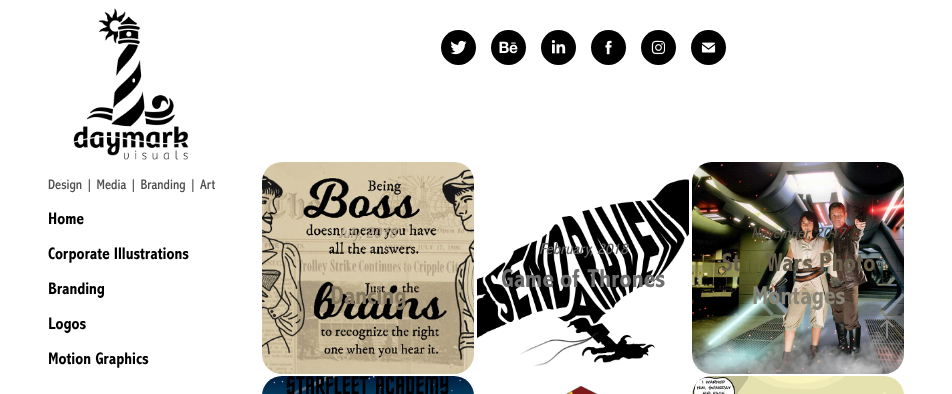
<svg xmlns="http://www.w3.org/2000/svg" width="952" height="394">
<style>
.a{font:500 14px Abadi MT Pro;fill:#4d4d4d}
.b{font:bold 17px Abadi MT Pro;fill:#000}
.c{font:italic 500 16px Abadi MT Pro;fill:#a99d84}
.d{font:bold 26px Abadi MT Pro;fill:#857962}
.e{font:italic 500 16px Abadi MT Pro;fill:#626262}
.f{font:bold 26px Abadi MT Pro;fill:#6f6f6f}
.g{font:italic 500 16px Abadi MT Pro;fill:#594f45}
.h{font:bold 26px Abadi MT Pro;fill:#68604c}
.i{font:bold 26px Abadi MT Pro;fill:#888476}
</style>
<rect width="100%" height="100%" fill="#fff"/>
<image href="1.png" x="73" y="8" width="116" height="152"/>
<circle fill="#000" cx="458.5" cy="47.5" r="17.5"/>
<image href="2.png" x="450" y="40" width="17" height="15"/>
<circle fill="#000" cx="508.5" cy="47.5" r="17.5"/>
<image href="3.png" x="499" y="41" width="19" height="13"/>
<circle fill="#000" cx="558.5" cy="47.5" r="17.5"/>
<image href="4.png" x="551" y="40" width="15" height="14"/>
<circle fill="#000" cx="608.5" cy="47.5" r="17.5"/>
<image href="5.png" x="605" y="40" width="7" height="15"/>
<circle fill="#000" cx="658.5" cy="47.5" r="17.5"/>
<image href="6.png" x="651" y="40" width="14" height="15"/>
<circle fill="#000" cx="708.5" cy="47.5" r="17.5"/>
<image href="7.png" x="701" y="42" width="15" height="11"/>
<image href="8.png" x="262" y="162" width="212" height="212"/>
<image href="9.png" x="477" y="179" width="212" height="187"/>
<image href="10.png" x="692" y="162" width="212" height="212"/>
<image href="11.png" x="262" y="376" width="212" height="18"/>
<image href="12.png" x="565" y="385" width="33" height="9"/>
<image href="13.png" x="692" y="376" width="212" height="18"/>
<image href="14.png" x="880" y="319" width="14" height="20"/>
<text class="a" x="48" y="189">Design | Media | Branding | Art</text>
<text class="b" x="48" y="224">Home</text>
<text class="b" x="48" y="259">Corporate Illustrations</text>
<text class="b" x="48" y="294">Branding</text>
<text class="b" x="48" y="329">Logos</text>
<text class="b" x="48" y="364">Motion Graphics</text>
<text class="c" x="339" y="238">July, 2018</text>
<text class="d" x="330" y="304">Dancing</text>
<text class="e" x="539" y="254">February, 2018</text>
<text class="f" x="501" y="287">Game of Thrones</text>
<text class="g" x="751" y="238">November, 2017</text>
<text class="h" x="721" y="271">St</text>
<text class="h" x="766" y="271">Wars Photo</text>
<text class="i" x="752" y="304">Montages</text>
</svg>
